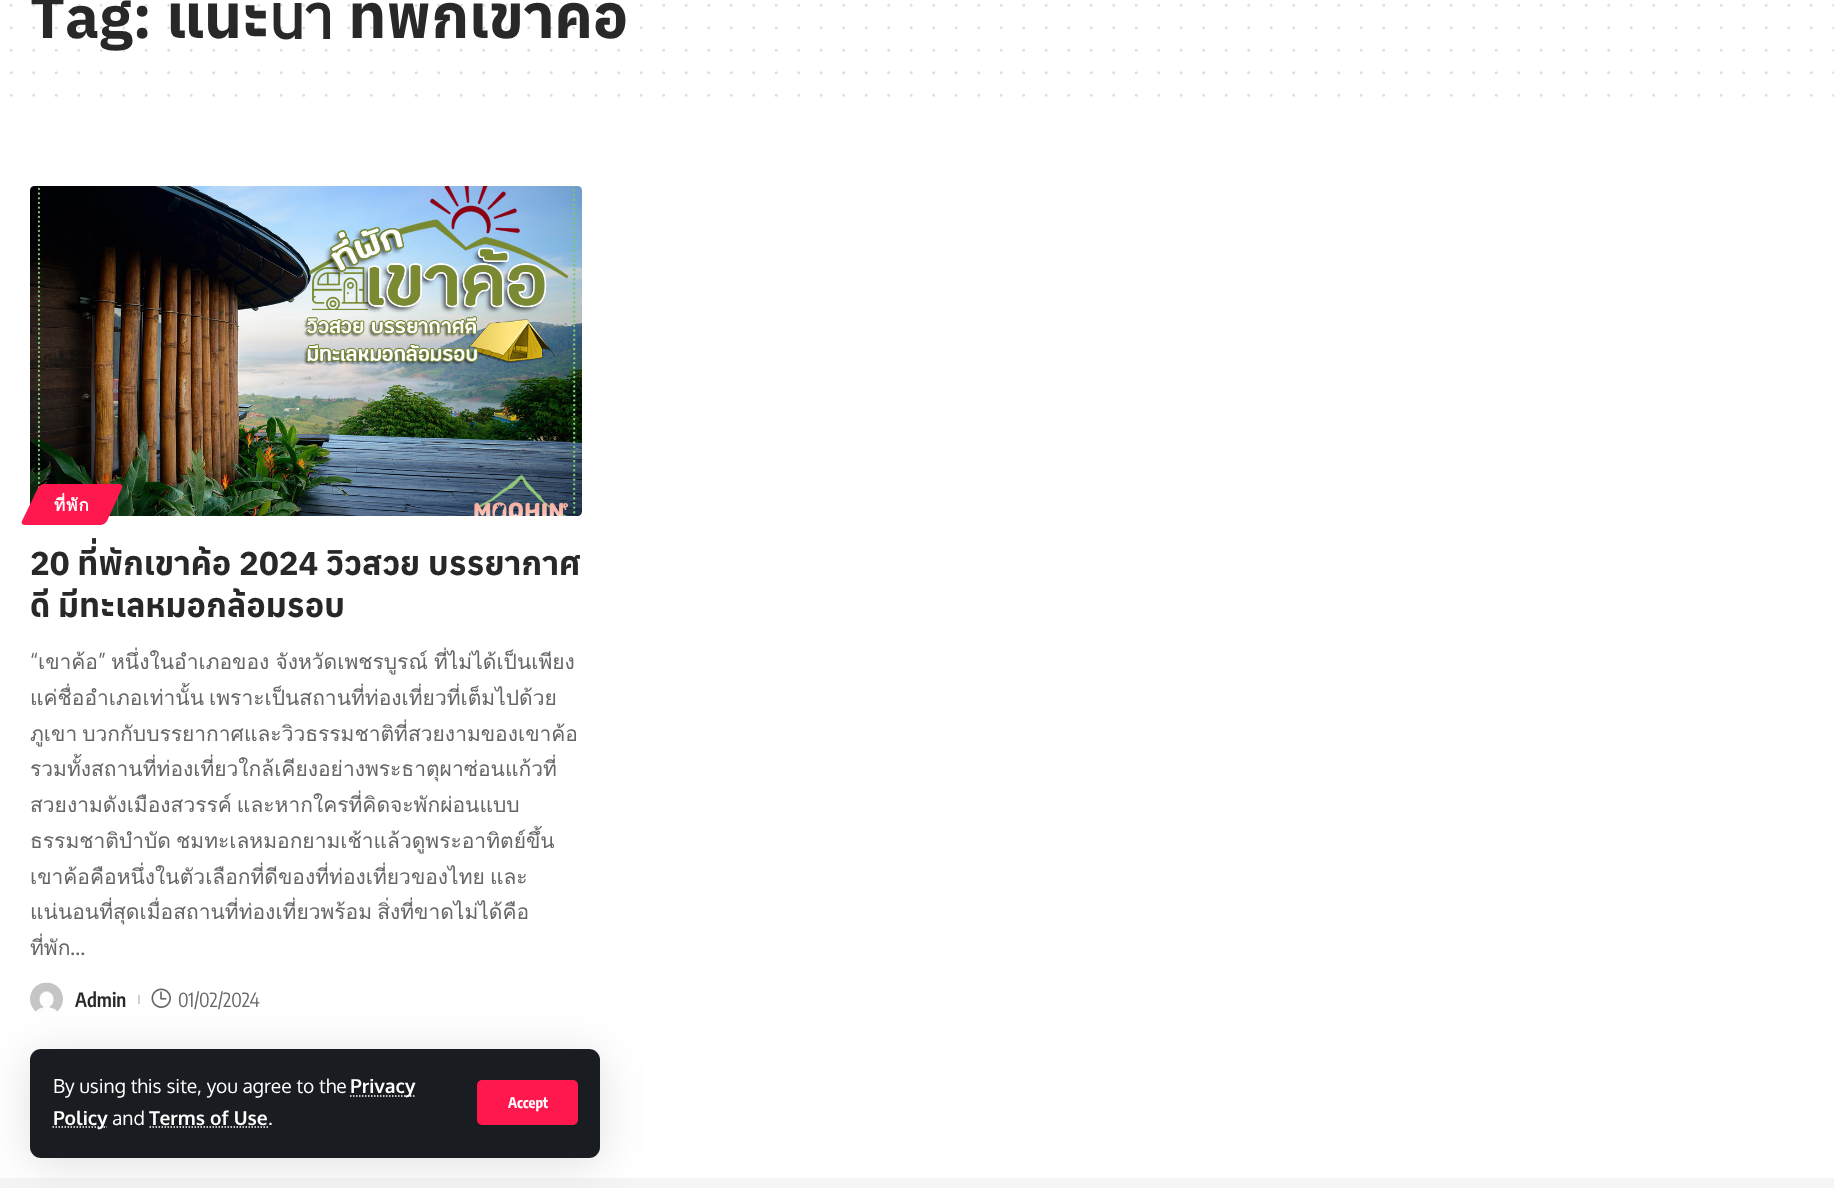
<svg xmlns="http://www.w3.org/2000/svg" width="1834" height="1188">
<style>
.a{font:bold 60px anuphan;fill:#282828}
.b{font:bold 17px Loma;letter-spacing:1px;fill:#fff}
.c{font:bold 33px anuphan;fill:#282828}
.d{font:21px Oxygen;fill:#666}
.e{font:21px Loma;fill:#666}
.f{font:600 19.5px Encode Sans Condensed;fill:#282828}
.g{font:19.5px Encode Sans Condensed;fill:#666}
.h{font:19.25px Oxygen;fill:#fff}
.i{font:bold 19.25px Oxygen;fill:#fff}
.j{font:bold 14.5px Encode Sans Condensed;fill:#fff}
</style>
<rect width="100%" height="100%" fill="#fff"/>
<path fill="none" stroke="#dfdfdf" stroke-width="3" stroke-linecap="round" stroke-dasharray="0 22.5" d="M11.2 72.8h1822.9"/>
<path fill="none" stroke="#dfdfdf" stroke-width="3" stroke-linecap="round" stroke-dasharray="0 22.5" d="M11.2 95.2h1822.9"/>
<image href="1.png" x="30" y="186" width="552" height="330"/>
<path fill="#ff184e" d="M44 484h75c3 0 4 2 3 4l-15 33c-1 2-4 4-7 4h-75c-3 0-4-2-3-4l16-33c1-2 4-4 6-4z"/>
<image href="2.png" x="30" y="982" width="33" height="30"/>
<path fill="#d1d1d1" d="M138 995h2v9H138z"/>
<image href="3.png" x="151" y="988" width="20" height="20"/>
<path fill="#f5f5f5" d="M0 1178h1834v10H0z"/>
<rect fill="#0000001f" filter="blur(22.5px)" x="30" y="1055" width="570" height="109" rx="11"/>
<rect fill="#191c20" x="30" y="1049" width="570" height="109" rx="11"/>
<path fill="none" stroke="#fff" stroke-width="1.5" stroke-dasharray="1.5 1.5" d="M350 1096h65.5"/>
<path fill="none" stroke="#fff" stroke-width="1.5" stroke-dasharray="1.5 1.5" d="M52.5 1127h54.5"/>
<path fill="none" stroke="#fff" stroke-width="1.5" stroke-dasharray="1.5 1.5" d="M149.5 1127h118.5"/>
<rect fill="#ff184e" x="477" y="1080" width="101" height="45" rx="5"/>
<text class="a" x="30" y="38">Tag: แนะนำ ที่พักเขาค้อ</text>
<path fill="none" stroke="#28282826" stroke-width="3" stroke-linecap="round" stroke-dasharray="0 22.5" d="M11.2 5.2h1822.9"/>
<path fill="none" stroke="#28282826" stroke-width="3" stroke-linecap="round" stroke-dasharray="0 22.5" d="M11.2 27.8h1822.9"/>
<path fill="none" stroke="#28282826" stroke-width="3" stroke-linecap="round" stroke-dasharray="0 22.5" d="M11.2 50.2h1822.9"/>
<text class="b" x="54" y="511">ที่พัก</text>
<text class="c" x="30" y="575">20 ที่พักเขาค้อ 2024 วิวสวย บรรยากาศ</text>
<text class="c" x="30" y="617">ดี มีทะเลหมอกล้อมรอบ</text>
<text class="d" x="30" y="669">“</text>
<text class="e" x="38" y="669">เขาค้อ</text>
<text class="d" x="98" y="669">”</text>
<text class="e" x="111" y="669" word-spacing="-1">หนึ่งในอำเภอของ จังหวัดเพชรบูรณ์ ที่ไม่ได้เป็นเพียง</text>
<text class="e" x="30" y="705" word-spacing="-2">แค่ชื่ออำเภอเท่านั้น เพราะเป็นสถานที่ท่องเที่ยวที่เต็มไปด้วย</text>
<text class="e" x="30" y="741" word-spacing="-2">ภูเขา บวกกับบรรยากาศและวิวธรรมชาติที่สวยงามของเขาค้อ</text>
<text class="e" x="30" y="776">รวมทั้งสถานที่ท่องเที่ยวใกล้เคียงอย่างพระธาตุผาซ่อนแก้วที่</text>
<text class="e" x="30" y="812" word-spacing="-2">สวยงามดังเมืองสวรรค์ และหากใครที่คิดจะพักผ่อนแบบ</text>
<text class="e" x="30" y="848" word-spacing="-2">ธรรมชาติบำบัด ชมทะเลหมอกยามเช้าแล้วดูพระอาทิตย์ขึ้น</text>
<text class="e" x="30" y="884" word-spacing="-2">เขาค้อคือหนึ่งในตัวเลือกที่ดีของที่ท่องเที่ยวของไทย และ</text>
<text class="e" x="30" y="919" word-spacing="-2">แน่นอนที่สุดเมื่อสถานที่ท่องเที่ยวพร้อม สิ่งที่ขาดไม่ได้คือ</text>
<text class="e" x="30" y="955">ที่พัก</text>
<text class="d" x="70" y="955">…</text>
<text class="f" x="75" y="1007">Admin</text>
<text class="g" x="178" y="1007">01/02/2024</text>
<text class="h" x="53" y="1093">By using this site, you agree to the</text>
<text class="i" x="350" y="1093">Privacy</text>
<text class="i" x="53" y="1125">Policy</text>
<text class="h" x="112" y="1125">and</text>
<text class="i" x="149" y="1125">Terms of Use</text>
<text class="h" x="268" y="1125">.</text>
<text class="j" x="508" y="1108">Accept</text>
</svg>
